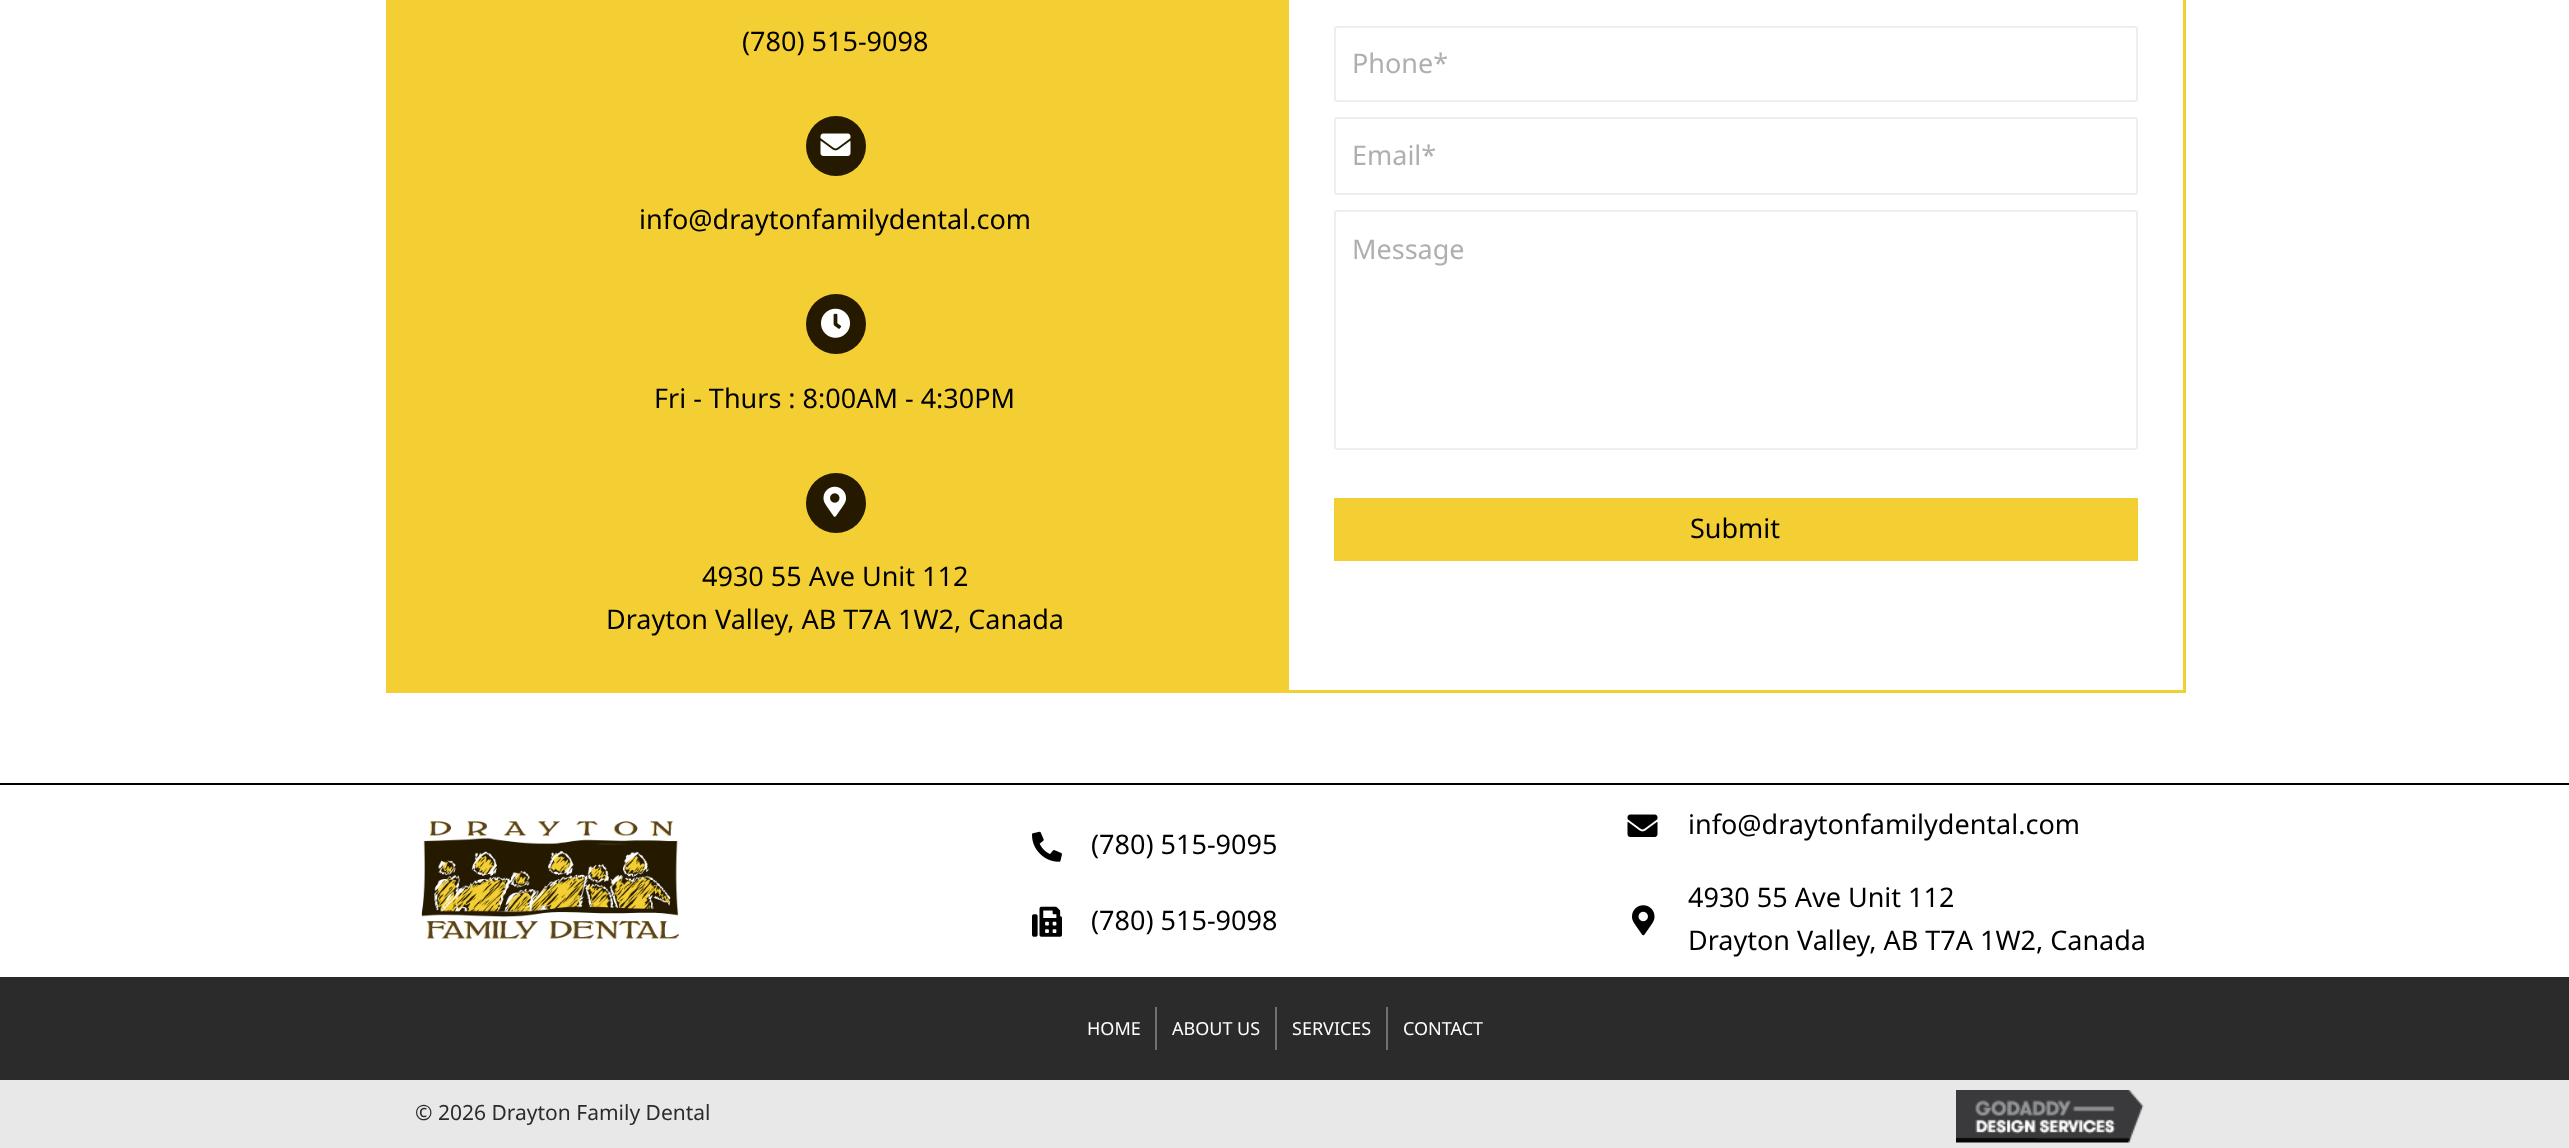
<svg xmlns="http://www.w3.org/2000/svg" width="2569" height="1148">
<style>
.a{font:27px Noto Sans;fill:#000}
.b{font:27px Noto Sans;fill:#afafaf}
.c{font:18px Noto Sans;fill:#fff}
.d{font:21px Noto Sans;fill:#2b2b2b}
</style>
<rect width="100%" height="100%" fill="#fff"/>
<path fill="#f4cf34" d="M386 0h900v693H386z"/>
<circle fill="#251900" cx="836" cy="146" r="30"/>
<image href="1.png" x="820" y="133" width="31" height="23"/>
<circle fill="#251900" cx="836" cy="324" r="30"/>
<image href="2.png" x="821" y="308" width="29" height="30"/>
<circle fill="#251900" cx="836" cy="503" r="30"/>
<image href="3.png" x="823" y="486" width="23" height="31"/>
<path fill="none" stroke="#f4cf34" stroke-width="3" d="M1287.5 -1.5h897v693H1287.5z"/>
<rect fill="none" stroke="#eee" stroke-width="2" x="1335" y="27" width="802" height="74" rx="2"/>
<rect fill="none" stroke="#eee" stroke-width="2" x="1335" y="118" width="802" height="76" rx="2"/>
<rect fill="none" stroke="#eee" stroke-width="2" x="1335" y="211" width="802" height="238" rx="2"/>
<path fill="#f4cf34" d="M1334 498h804v63H1334z"/>
<path fill="#000" d="M0 783h2569v2H0z"/>
<image href="4.png" x="421" y="821" width="258" height="119"/>
<image href="5.png" x="1032" y="831" width="30" height="31"/>
<image href="6.png" x="1032" y="906" width="30" height="31"/>
<image href="7.png" x="1627" y="814" width="31" height="23"/>
<image href="8.png" x="1632" y="905" width="23" height="31"/>
<path fill="#2b2b2b" d="M0 977h2569v103H0z"/>
<path fill="#717171" d="M1155 1007h2v43H1155z"/>
<path fill="#717171" d="M1275 1007h2v43H1275z"/>
<path fill="#717171" d="M1386 1007h2v43H1386z"/>
<path fill="#e8e8e8" d="M0 1080h2569v68H0z"/>
<image href="9.png" x="1956" y="1090" width="188" height="53"/>
<text class="a" x="742" y="51">(780) 515-9098</text>
<text class="a" x="639" y="229">info@draytonfamilydental.com</text>
<text class="a" x="654" y="408">Fri - Thurs : 8:00AM - 4:30PM</text>
<text class="a" x="702" y="586">4930 55 Ave Unit 112</text>
<text class="a" x="606" y="629">Drayton Valley, AB T7A 1W2, Canada</text>
<text class="b" x="1352" y="73">Phone*</text>
<text class="b" x="1352" y="165">Email*</text>
<text class="b" x="1352" y="259">Message</text>
<text class="a" x="1690" y="538">Submit</text>
<text class="a" x="1091" y="854">(780) 515-9095</text>
<text class="a" x="1091" y="930">(780) 515-9098</text>
<text class="a" x="1688" y="834">info@draytonfamilydental.com</text>
<text class="a" x="1688" y="907">4930 55 Ave Unit 112</text>
<text class="a" x="1688" y="950">Drayton Valley, AB T7A 1W2, Canada</text>
<text class="c" x="1087" y="1035">HOME</text>
<text class="c" x="1172" y="1035">ABOUT US</text>
<text class="c" x="1292" y="1035">SERVICES</text>
<text class="c" x="1403" y="1035">CONTACT</text>
<text class="d" x="415" y="1120">© 2026 Drayton Family Dental</text>
</svg>
